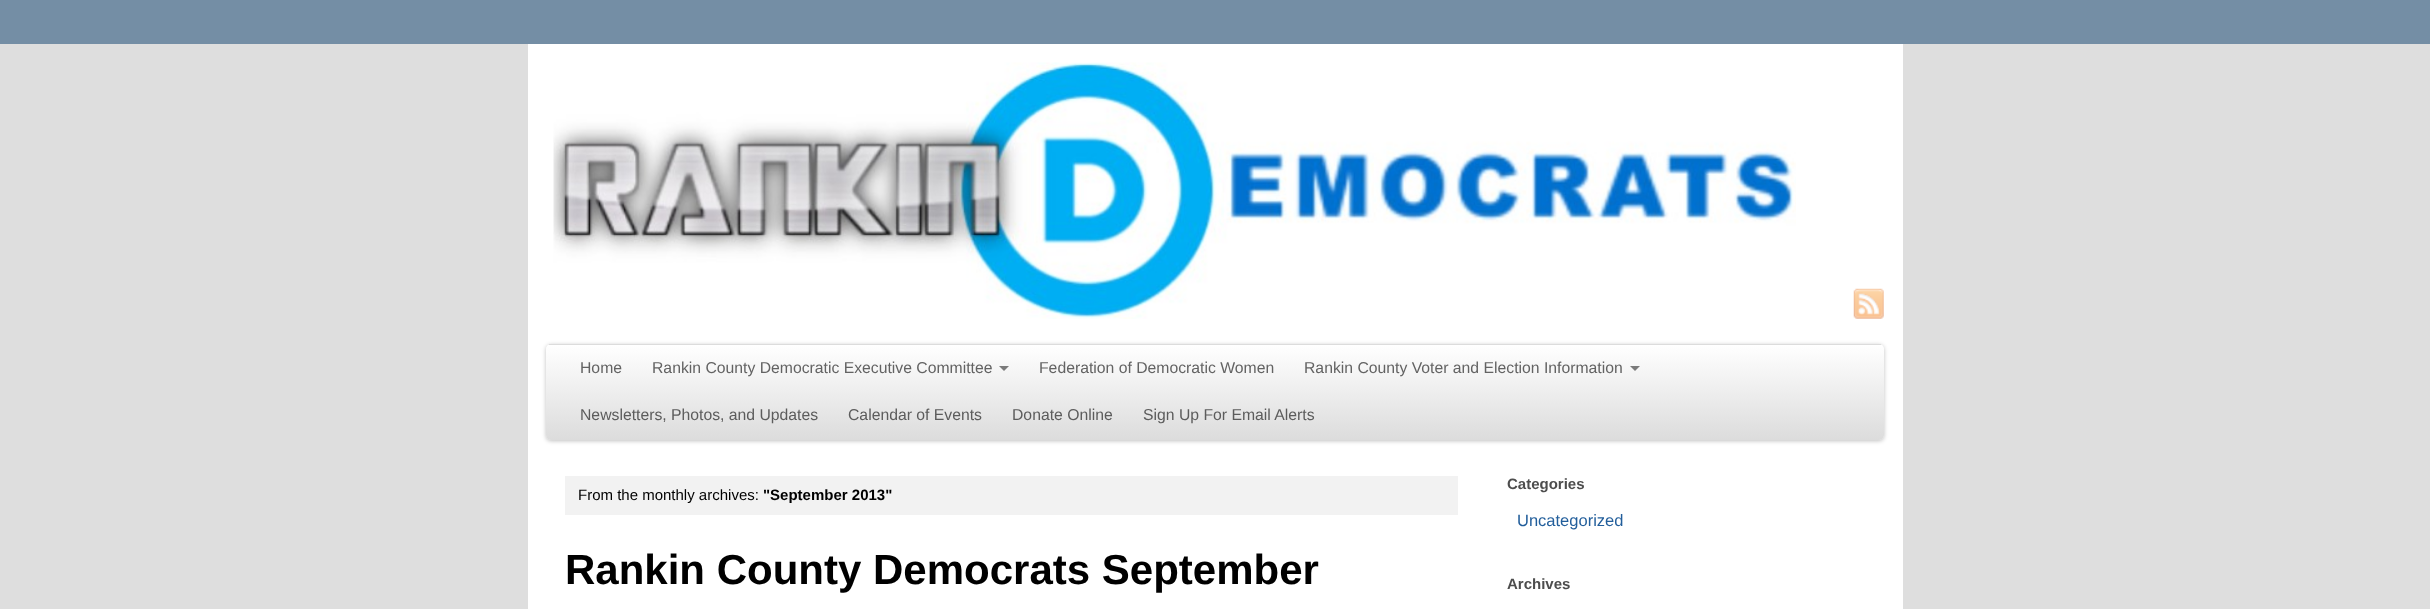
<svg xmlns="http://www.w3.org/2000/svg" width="2430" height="609">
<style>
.a{font:15.75px Liberation Sans;fill:#636363}
.b{font:15.75px Liberation Sans;fill:#5c5c5c}
.c{font:15px Liberation Sans;fill:#000}
.d{font:bold 15px Liberation Sans;fill:#000}
.e{font:bold 42px Liberation Sans;fill:#000}
.f{font:bold 15px Liberation Sans;fill:#4d4d4d}
.g{font:16.5px Liberation Sans;fill:#225e9b}
</style>
<defs>
<clipPath id="clip1"><rect x="546" y="344" width="1338" height="96" rx="5"/></clipPath>
<linearGradient id="g1" gradientUnits="userSpaceOnUse" x1="1215" y1="345" x2="1215" y2="440"><stop offset="0" stop-color="#fff"/><stop offset="1" stop-color="#dcdcdc"/></linearGradient>
</defs>
<rect width="100%" height="100%" fill="#dedede"/>
<path fill="#748ea5" d="M0 0h2430v44H0z"/>
<path fill="#fff" d="M528 44h1375v565H528z"/>
<image href="1.png" x="553" y="62" width="1243" height="257"/>
<image href="2.png" x="1853" y="288" width="31" height="31"/>
<rect fill="#00000040" filter="blur(2px)" x="546" y="345" width="1338" height="96" rx="5"/>
<rect fill="#f1f1f1" x="546" y="344" width="1338" height="96" rx="5"/>
<g clip-path="url(#clip1)">
<path fill="url(#g1)" d="M546 345h1338v90c0 3-2 5-5 5h-1328c-3 0-5-2-5-5z"/>
</g>
<path fill="#dcdcdc" d="M549 344h1332v1H549z"/>
<path fill="#7b7b7b" d="M999 366h10l-5 5z"/>
<path fill="#7b7b7b" d="M1630 366h10l-5 5z"/>
<path fill="#f2f2f2" d="M565 476h893v39H565z"/>
<text class="a" x="580" y="373">Home</text>
<text class="a" x="652" y="373">Rankin County Democratic Executive Committee</text>
<text class="a" x="1039" y="373">Federation of Democratic Women</text>
<text class="a" x="1304" y="373">Rankin County Voter and Election Information</text>
<text class="b" x="580" y="420">Newsletters, Photos, and Updates</text>
<text class="b" x="848" y="420">Calendar of Events</text>
<text class="b" x="1012" y="420">Donate Online</text>
<text class="b" x="1143" y="420">Sign Up For Email Alerts</text>
<text class="c" x="578" y="500">From the monthly archives:</text>
<text class="d" x="763" y="500">"September 2013"</text>
<text class="e" x="565" y="584">Rankin County Democrats September</text>
<text class="f" x="1507" y="489">Categories</text>
<text class="g" x="1517" y="526">Uncategorized</text>
<text class="f" x="1507" y="589">Archives</text>
</svg>
